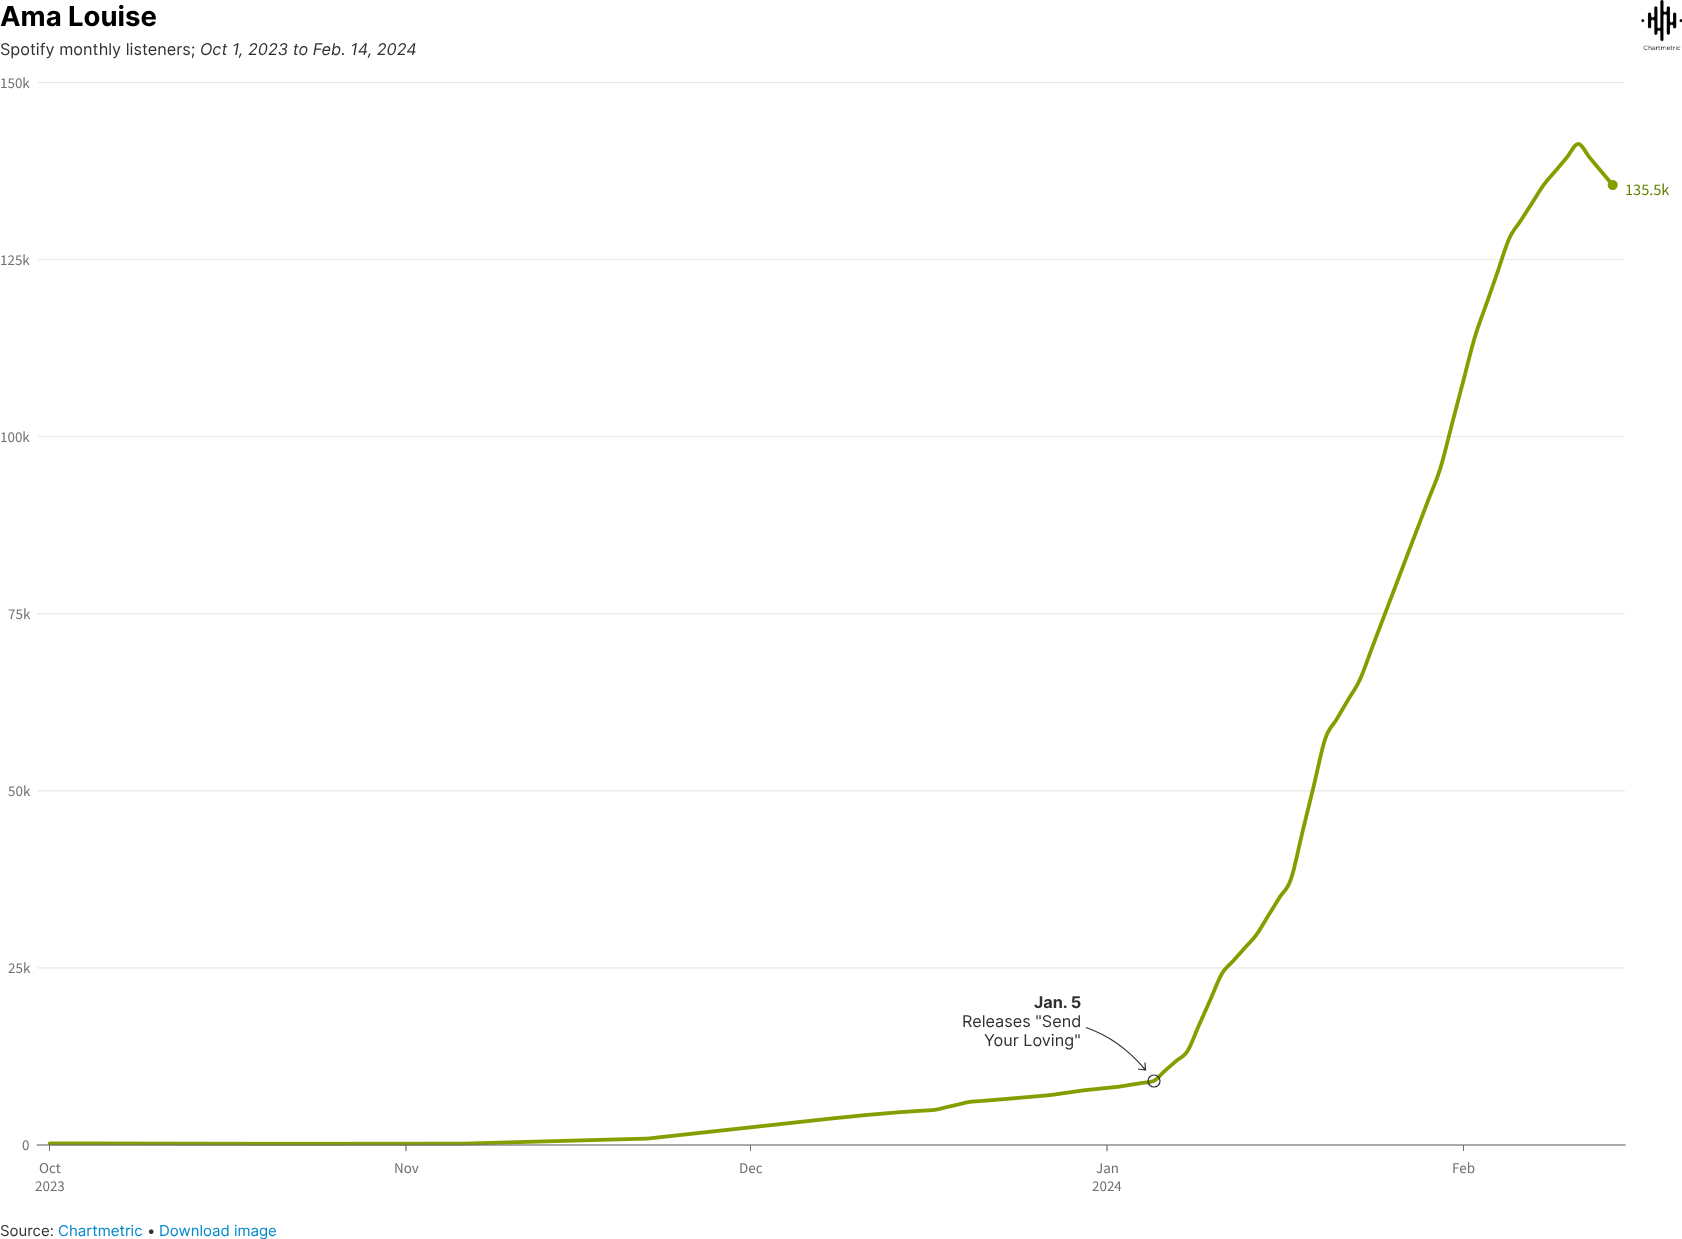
<svg xmlns="http://www.w3.org/2000/svg" width="1682" height="1239">
<style>
.a{font:bold 27.5px Inter;fill:#000}
.b{font:16.25px Inter;fill:#313131}
.c{font:italic 16.25px Inter;fill:#313131}
.d{font:15px Source Sans Pro;fill:#707070}
.e{font:16.25px Source Sans Pro;fill:#638100}
.f{font:bold 16.25px Inter;fill:#313131}
.g{font:15px Inter;fill:#313131}
.h{font:15px Inter;fill:#08c}
</style>
<rect width="100%" height="100%" fill="#fff"/>
<image href="1.png" x="1641" y="0" width="41" height="50"/>
<image href="2.png" x="36" y="82" width="1590" height="1070"/>
<path fill="none" stroke="#303030" stroke-width="1.2" d="M1086 1027.5c23 8 42.5 22 59.5 42.5m-.5-7.5l.5 7.5l-7.5-1"/>
<circle fill="none" stroke="#303030" stroke-width="1.2" cx="1154" cy="1081" r="6"/>
<text class="a" x="0" y="26">Ama Louise</text>
<text class="b" x="0" y="55">Spotify monthly listeners;</text>
<text class="c" x="200" y="55">Oct 1, 2023 to Feb. 14, 2024</text>
<text class="d" x="0" y="88">150k</text>
<text class="d" x="0" y="265">125k</text>
<text class="d" x="0" y="442">100k</text>
<text class="d" x="8" y="619">75k</text>
<text class="d" x="8" y="796">50k</text>
<text class="d" x="8" y="973">25k</text>
<text class="d" x="22" y="1150">0</text>
<text class="d" x="39" y="1173">Oct</text>
<text class="d" x="394" y="1173">Nov</text>
<text class="d" x="739" y="1173">Dec</text>
<text class="d" x="1096" y="1173">Jan</text>
<text class="d" x="1452" y="1173">Feb</text>
<text class="d" x="35" y="1191">2023</text>
<text class="d" x="1092" y="1191">2024</text>
<text class="e" x="1625" y="195">135.5k</text>
<text class="f" x="1034" y="1008">Jan. 5</text>
<text class="b" x="962" y="1027">Releases "Send</text>
<text class="b" x="984" y="1046">Your Loving"</text>
<text class="g" x="0" y="1236">Source:</text>
<text class="h" x="58" y="1236">Chartmetric</text>
<text class="g" x="147" y="1236">•</text>
<text class="h" x="159" y="1236">Download image</text>
</svg>
